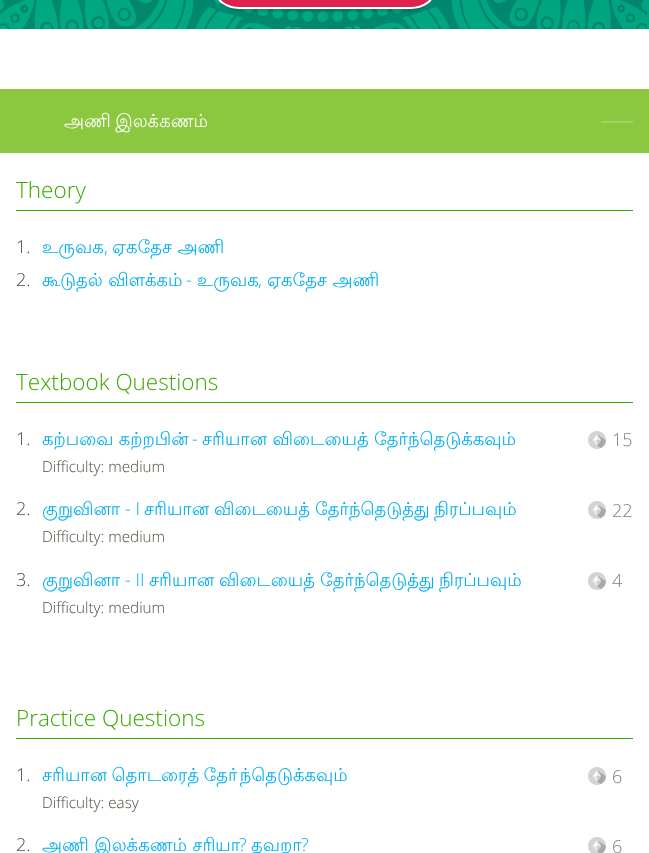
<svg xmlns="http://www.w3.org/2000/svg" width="649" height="853">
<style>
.a{font:18px Lohit Tamil;fill:#fff}
.b{font:300 22.5px Open Sans;fill:#3ba900}
.c{font:300 18px Open Sans;fill:#4e4e3f}
.d{font:18px Lohit Tamil;fill:#00aeef}
.e{font:300 18px Open Sans;fill:#00aeef}
.f{font:300 15.25px Open Sans;fill:#4e4e3f}
.g{font:300 18px Open Sans;fill:#808080}
</style>
<defs>
<linearGradient id="g1" gradientUnits="userSpaceOnUse" x1="293" y1="65" x2="356" y2="-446"><stop offset="0" stop-color="#00aa81"/><stop offset="1" stop-color="#008982"/></linearGradient>
</defs>
<rect width="100%" height="100%" fill="#fff"/>
<path fill="url(#g1)" d="M0 0h649v29H0z"/>
<image href="1.png" x="0" y="0" width="647" height="29"/>
<path fill="#0000001a" d="M223 2c3 6 9 10 17 10h170c8 0 14-4 17-10c-4 4-10 7-17 7h-170c-7 0-13-3-17-7z"/>
<rect fill="#de2250" stroke="#fff" stroke-width="2" x="216" y="-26" width="218" height="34" rx="23.5"/>
<path fill="#8cc740" d="M0 89h649v64H0z"/>
<path fill="#a3d266" d="M601 121h32v2H601z"/>
<path fill="#3ba900" d="M16 210h617v1H16z"/>
<path fill="#3ba900" d="M16 402h617v1H16z"/>
<image href="2.png" x="588" y="431" width="18" height="18"/>
<image href="2.png" x="588" y="501" width="18" height="18"/>
<image href="2.png" x="588" y="572" width="18" height="18"/>
<path fill="#3ba900" d="M16 738h617v1H16z"/>
<image href="2.png" x="588" y="767" width="18" height="18"/>
<image href="3.png" x="588" y="837" width="18" height="16"/>
<text class="a" x="64" y="127" word-spacing="-1">அணி இலக்கணம்</text>
<text class="b" x="16" y="198">Theory</text>
<text class="c" x="16" y="253">1.</text>
<text class="d" x="42" y="253">உருவக</text>
<text class="e" x="104" y="253">,</text>
<text class="d" x="112" y="253">ஏகதேச அணி</text>
<text class="c" x="16" y="286">2.</text>
<text class="d" x="42" y="286">கூடுதல் விளக்கம்</text>
<text class="e" x="186" y="286">-</text>
<text class="d" x="197" y="286">உருவக</text>
<text class="d" x="267" y="286">ஏகதேச அணி</text>
<text class="e" x="258" y="286">,</text>
<text class="b" x="16" y="390">Textbook Questions</text>
<text class="c" x="16" y="445">1.</text>
<text class="d" x="42" y="445">கற்பவை கற்றபின்</text>
<text class="e" x="192" y="445">-</text>
<text class="d" x="202" y="445">சரியான விடையைத் தேர்ந்தெடுக்கவும்</text>
<text class="f" x="42" y="472">Difficulty: medium</text>
<text class="g" x="612" y="446">15</text>
<text class="c" x="16" y="515">2.</text>
<text class="d" x="42" y="515">குறுவினா</text>
<text class="e" x="125" y="515">- I</text>
<text class="d" x="144" y="515">சரியான</text>
<text class="d" x="214" y="515">விடையைத்</text>
<text class="d" x="315" y="515">தேர்ந்தெடுத்து</text>
<text class="d" x="434" y="515">நிரப்பவும்</text>
<text class="f" x="42" y="542">Difficulty: medium</text>
<text class="g" x="612" y="517">22</text>
<text class="c" x="16" y="586">3.</text>
<text class="d" x="42" y="586">குறுவினா</text>
<text class="e" x="125" y="586">- II</text>
<text class="d" x="149" y="586">சரியான</text>
<text class="d" x="219" y="586">விடையைத்</text>
<text class="d" x="320" y="586">தேர்ந்தெடுத்து</text>
<text class="d" x="439" y="586">நிரப்பவும்</text>
<text class="f" x="42" y="613">Difficulty: medium</text>
<text class="g" x="612" y="587">4</text>
<text class="b" x="16" y="726">Practice Questions</text>
<text class="c" x="16" y="781">1.</text>
<text class="d" x="42" y="781" word-spacing="-1">சரியான தொடரைத் தோ்ந்தெடுக்கவும்</text>
<text class="f" x="42" y="808">Difficulty: easy</text>
<text class="g" x="612" y="783">6</text>
<text class="c" x="16" y="851">2.</text>
<text class="d" x="42" y="851">அணி இலக்கணம் சரியா</text>
<text class="e" x="239" y="851">?</text>
<text class="d" x="251" y="851">தவறா</text>
<text class="e" x="301" y="851">?</text>
<text class="g" x="612" y="853">6</text>
</svg>
